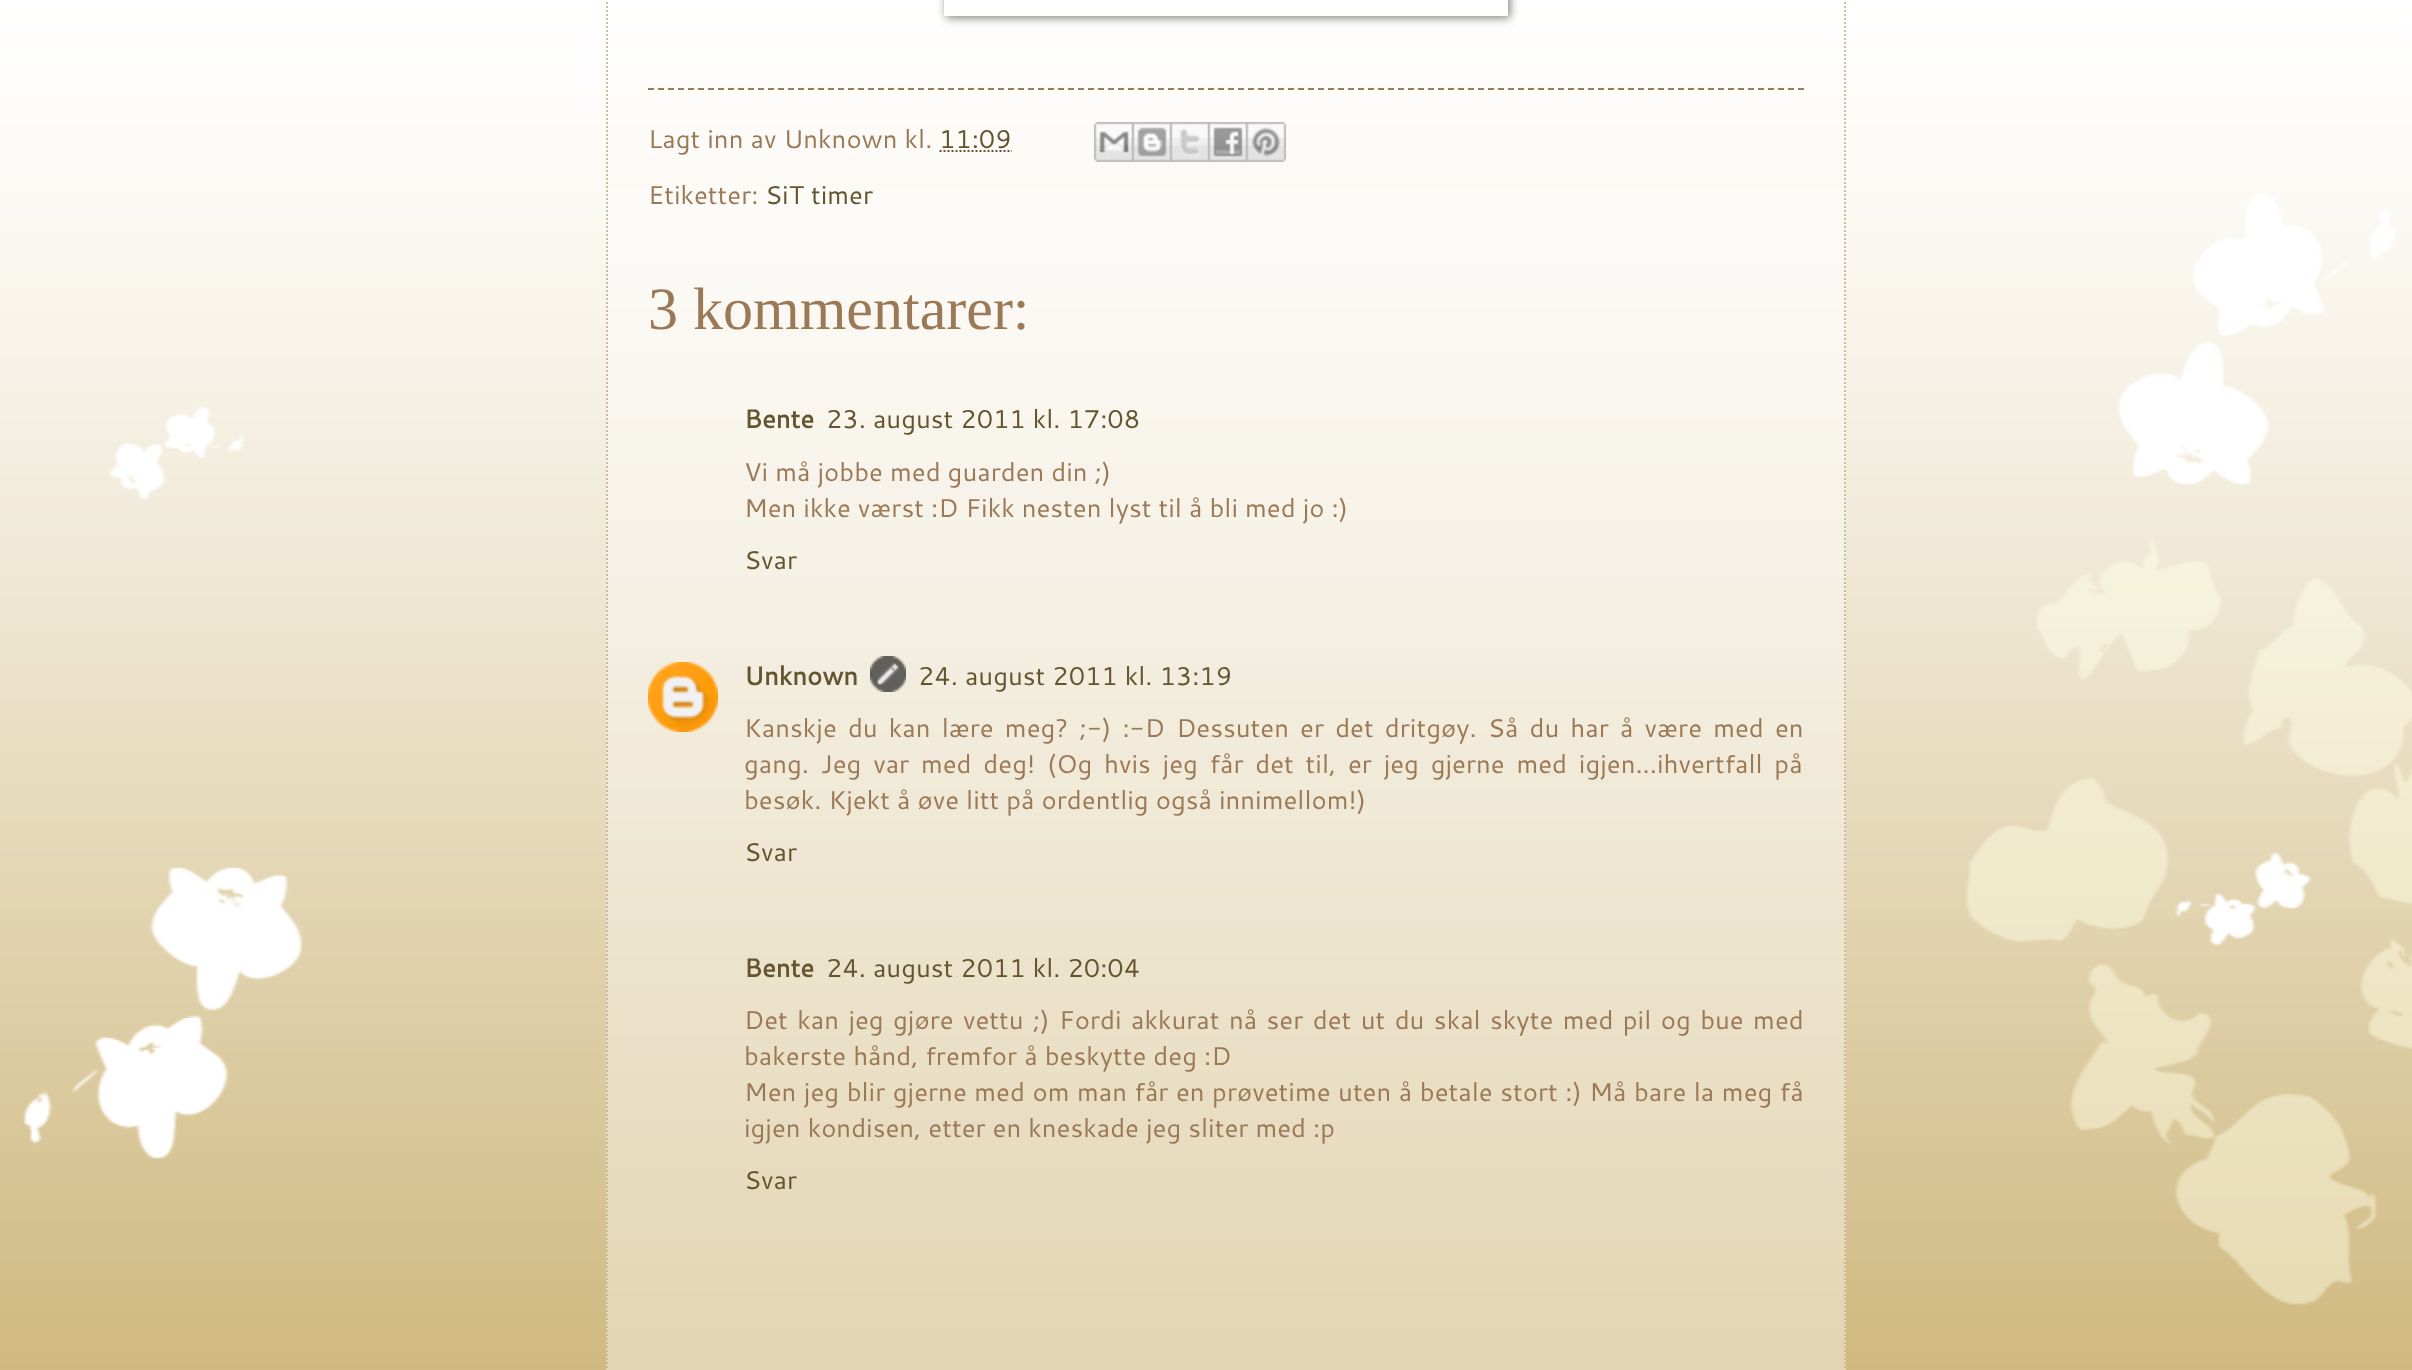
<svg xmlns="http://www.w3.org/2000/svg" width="2412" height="1370">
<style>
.a{font:25.75px Cantarell;fill:#9b7956}
.b{font:25.75px Cantarell;fill:#64552f}
.c{font:60px Liberation Serif;fill:#9b7956}
.d{font:bold 25.75px Cantarell;fill:#64552f}
</style>
<defs>
<clipPath id="clip1"><path d="M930 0h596v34h-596zm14-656h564v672h-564z" clip-rule="evenodd"/></clipPath>
</defs>
<rect width="100%" height="100%" fill="#c0a256"/>
<image href="1.png" x="0" y="0" width="2412" height="1370"/>
<path fill="#ffffff66" d="M606 187h1240v1183H606z"/>
<path fill="none" stroke="#ccbb9a" stroke-width="2" stroke-dasharray="2 2" d="M1845-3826v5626"/>
<path fill="none" stroke="#ccbb9a" stroke-width="2" stroke-dasharray="2 2" d="M607-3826v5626"/>
<g clip-path="url(#clip1)">
<path fill="#00000080" filter="blur(5px)" d="M946 -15h564v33H946z"/>
</g>
<path fill="none" stroke="#9b7956" stroke-width="2" stroke-dasharray="6 4" d="M648 89h1156"/>
<path fill="none" stroke="#64552f" stroke-width="2" stroke-dasharray="2 2" d="M939.5 151h72.5"/>
<image href="2.png" x="1094" y="122" width="38" height="40"/>
<image href="3.png" x="1132" y="122" width="38" height="40"/>
<image href="4.png" x="1170" y="122" width="38" height="40"/>
<image href="5.png" x="1208" y="122" width="38" height="40"/>
<image href="6.png" x="1246" y="122" width="40" height="40"/>
<image href="7.png" x="648" y="662" width="70" height="70"/>
<image href="8.png" x="870" y="656" width="36" height="36"/>
<text class="a" x="648" y="148">Lagt inn av Unknown kl.</text>
<text class="b" x="939" y="148">11:09</text>
<text class="a" x="648" y="204">Etiketter:</text>
<text class="b" x="765" y="204">SiT timer</text>
<text class="c" x="648" y="329">3 kommentarer:</text>
<text class="d" x="744" y="428">Bente</text>
<text class="b" x="826" y="428">23. august 2011 kl. 17:08</text>
<text class="a" x="744" y="481">Vi må jobbe med guarden din ;)</text>
<text class="a" x="744" y="517">Men ikke værst :D Fikk nesten lyst til å bli med jo :)</text>
<text class="b" x="744" y="569">Svar</text>
<text class="d" x="744" y="685">Unknown</text>
<text class="b" x="918" y="685">24. august 2011 kl. 13:19</text>
<text class="a" x="744" y="737" word-spacing="4.1">Kanskje du kan lære meg? ;-) :-D Dessuten er det dritgøy. Så du har å være med en</text>
<text class="a" x="744" y="773" word-spacing="4.75">gang. Jeg var med deg! (Og hvis jeg får det til, er jeg gjerne med igjen...ihvertfall på</text>
<text class="a" x="744" y="809">besøk. Kjekt å øve litt på ordentlig også innimellom!)</text>
<text class="b" x="744" y="861">Svar</text>
<text class="d" x="744" y="977">Bente</text>
<text class="b" x="826" y="977">24. august 2011 kl. 20:04</text>
<text class="a" x="744" y="1029" word-spacing="2.4">Det kan jeg gjøre vettu ;) Fordi akkurat nå ser det ut du skal skyte med pil og bue med</text>
<text class="a" x="744" y="1065">bakerste hånd, fremfor å beskytte deg :D</text>
<text class="a" x="744" y="1101" word-spacing="0.5">Men jeg blir gjerne med om man får en prøvetime uten å betale stort :) Må bare la meg få</text>
<text class="a" x="744" y="1137">igjen kondisen, etter en kneskade jeg sliter med :p</text>
<text class="b" x="744" y="1189">Svar</text>
</svg>
